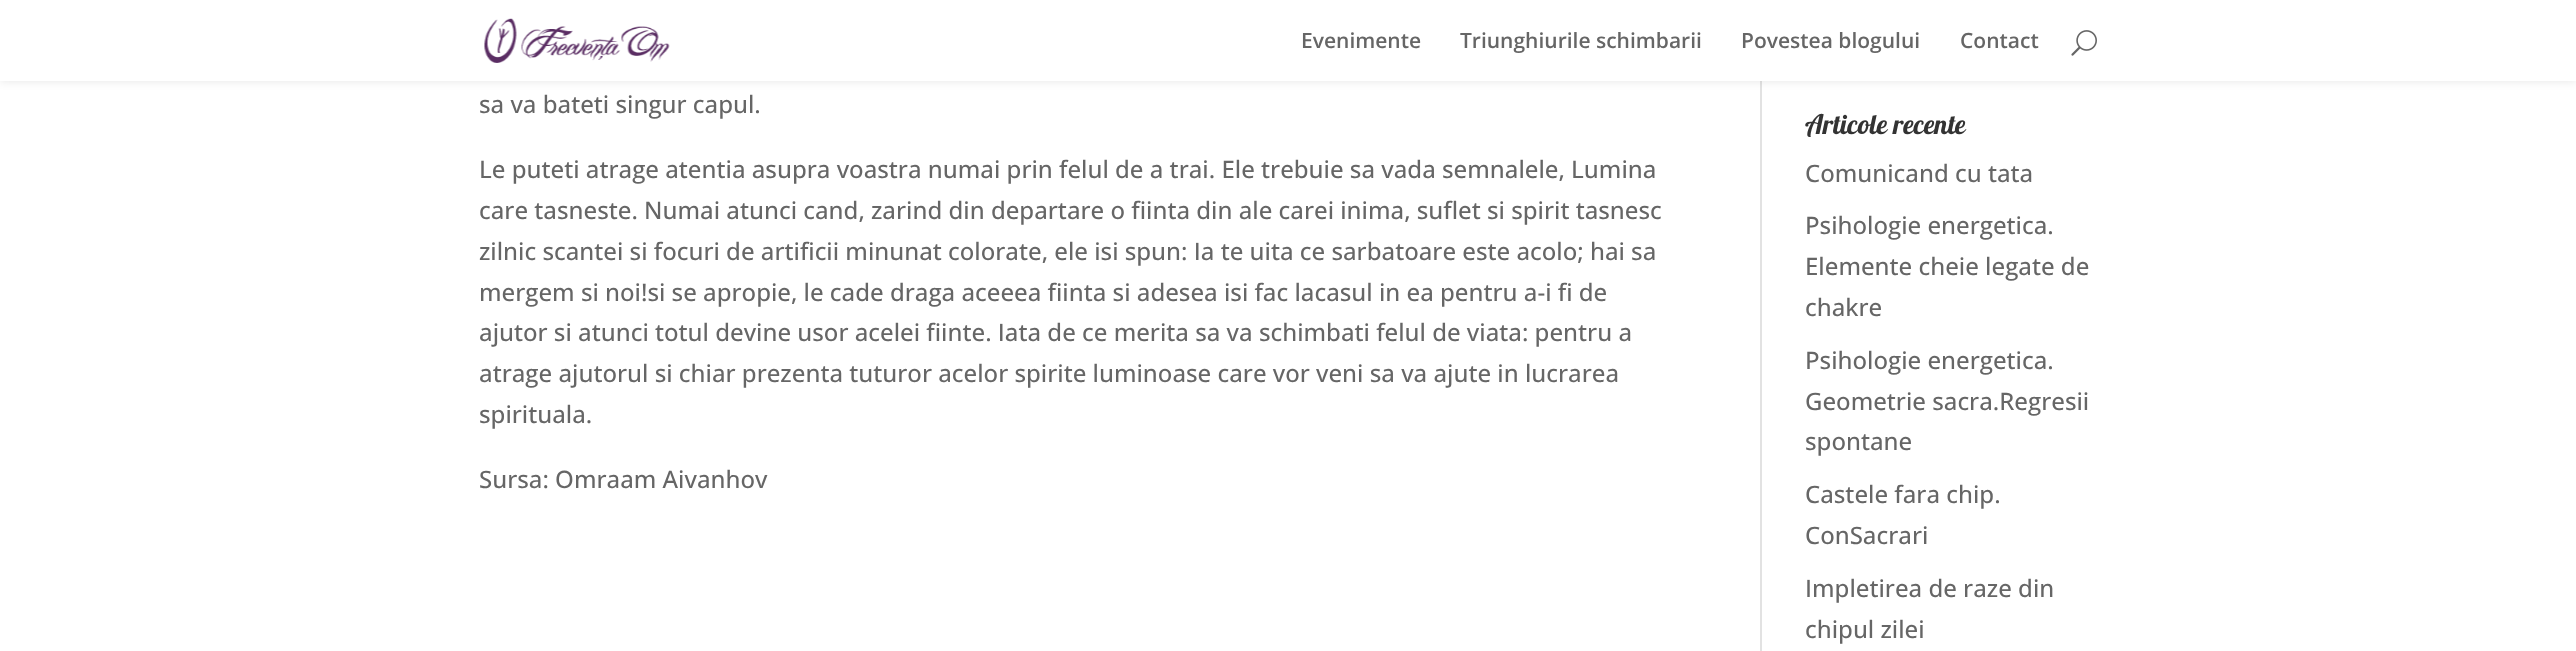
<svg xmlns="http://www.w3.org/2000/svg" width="2576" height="651">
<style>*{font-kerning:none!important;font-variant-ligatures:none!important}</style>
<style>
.a{font:600 21px Open Sans;fill:#666}
.b{font:500 24px Open Sans;fill:#666}
.c{font:27px Lobster;fill:#333}
</style>
<rect width="100%" height="100%" fill="#fff"/>
<path fill="#e2e2e2" d="M1760 81h2v570H1760z"/>
<path fill="#0000001a" filter="blur(5px)" d="M0 0h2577v81H0z"/>
<path fill="#fff" d="M0 0h2576v81H0z"/>
<image href="1.png" x="484" y="18" width="186" height="45"/>
<image href="2.png" x="2071" y="30" width="26" height="26"/>
<text class="a" x="1301" y="48">Evenimente</text>
<text class="a" x="1460" y="48">Triunghiurile schimbarii</text>
<text class="a" x="1741" y="48">Povestea blogului</text>
<text class="a" x="1960" y="48">Contact</text>
<text class="b" x="479" y="113">sa va bateti singur capul.</text>
<text class="b" x="479" y="178">Le puteti atrage atentia asupra voastra numai prin felul de a trai. Ele trebuie sa vada semnalele, Lumina</text>
<text class="b" x="479" y="219">care tasneste. Numai atunci cand, zarind din departare o fiinta din ale carei inima, suflet si spirit tasnesc</text>
<text class="b" x="479" y="260">zilnic scantei si focuri de artificii minunat colorate, ele isi spun: Ia te uita ce sarbatoare este acolo; hai sa</text>
<text class="b" x="479" y="301">mergem si noi!si se apropie, le cade draga aceeea fiinta si adesea isi fac lacasul in ea pentru a-i fi de</text>
<text class="b" x="479" y="341">ajutor si atunci totul devine usor acelei fiinte. Iata de ce merita sa va schimbati felul de viata: pentru a</text>
<text class="b" x="479" y="382">atrage ajutorul si chiar prezenta tuturor acelor spirite luminoase care vor veni sa va ajute in lucrarea</text>
<text class="b" x="479" y="423">spirituala.</text>
<text class="b" x="479" y="488">Sursa: Omraam Aivanhov</text>
<text class="c" x="1805" y="134">Articole recente</text>
<text class="b" x="1805" y="182">Comunicand cu tata</text>
<text class="b" x="1805" y="234">Psihologie energetica.</text>
<text class="b" x="1805" y="275">Elemente cheie legate de</text>
<text class="b" x="1805" y="316">chakre</text>
<text class="b" x="1805" y="369">Psihologie energetica.</text>
<text class="b" x="1805" y="410">Geometrie sacra.Regresii</text>
<text class="b" x="1805" y="450">spontane</text>
<text class="b" x="1805" y="503">Castele fara chip.</text>
<text class="b" x="1805" y="544">ConSacrari</text>
<text class="b" x="1805" y="597">Impletirea de raze din</text>
<text class="b" x="1805" y="638">chipul zilei</text>
</svg>
